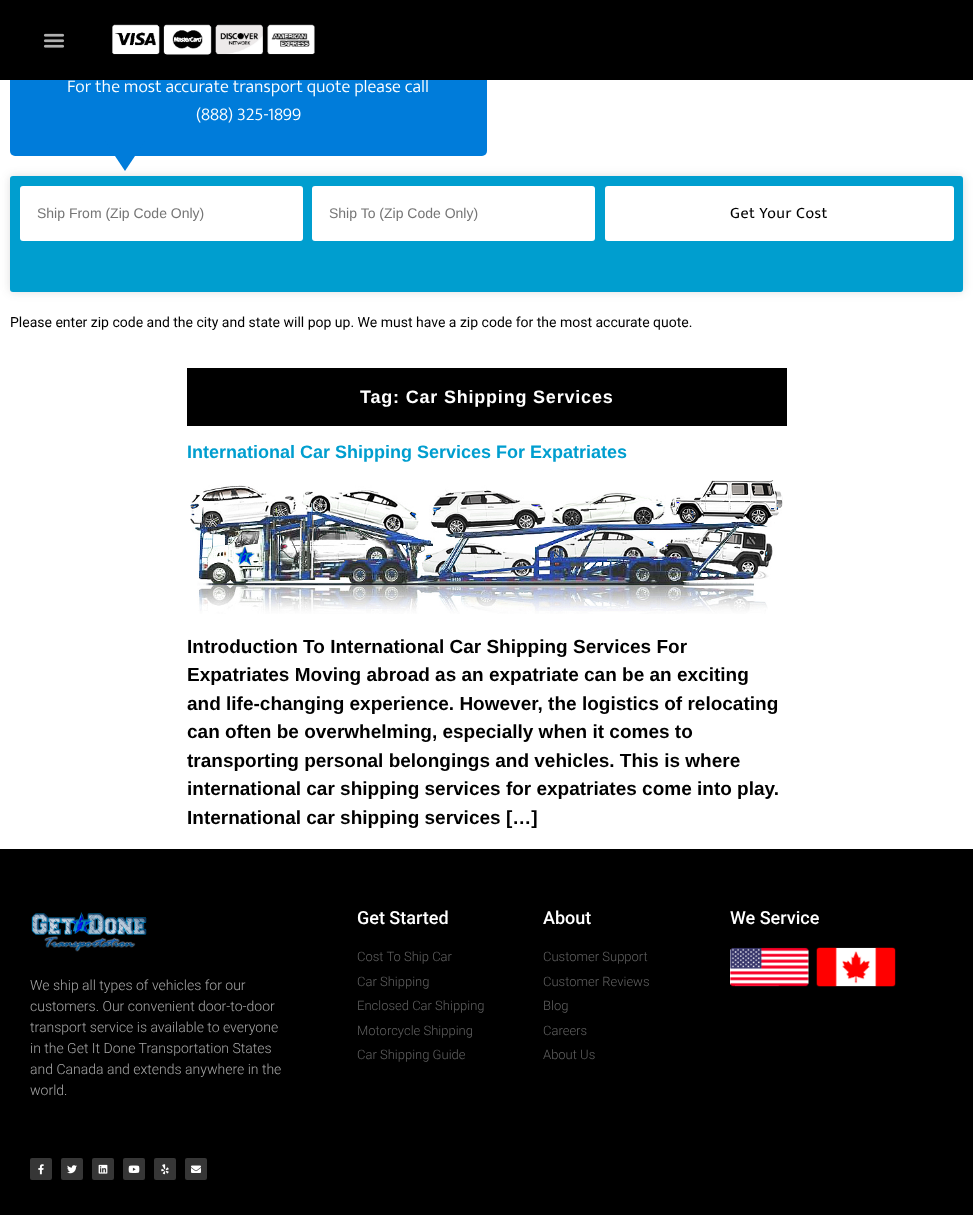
<svg xmlns="http://www.w3.org/2000/svg" width="973" height="1215">
<style>
.a{font:300 18px Mukta;fill:#fff}
.b{font:14px Liberation Sans;fill:#757575}
.c{font:16px Mukta;letter-spacing:0.5px;fill:#000}
.d{font:14px Roboto;fill:#000}
.e{font:bold 18px Liberation Sans;letter-spacing:0.8px;fill:#fff}
.f{font:bold 18px Liberation Sans;fill:#009ecf}
.g{font:bold 19px Liberation Sans;fill:#000}
.h{font:500 18px Roboto;fill:#fff}
.i{font:300 13px Roboto;fill:#616161}
.j{font:300 14px Roboto;fill:#a6a6a6}
</style>
<rect width="100%" height="100%" fill="#fff"/>
<rect fill="#007cda" x="10" y="63" width="477" height="93" rx="5"/>
<rect fill="#2d2d2d29" filter="blur(5px)" x="10" y="176" width="953" height="116" rx="3"/>
<path fill="#007cda" d="M105 141h40l-20 30z"/>
<rect fill="#009ecf" x="10" y="176" width="953" height="116" rx="3"/>
<rect fill="#fff" x="20" y="186" width="283" height="55" rx="3"/>
<rect fill="#fff" x="312" y="186" width="283" height="55" rx="3"/>
<rect fill="#fff" x="605" y="186" width="349" height="55" rx="3"/>
<path fill="#000" d="M187 368h600v58H187z"/>
<image href="3.png" x="190" y="480" width="593" height="134"/>
<path fill="#000" d="M0 849h973v366H0z"/>
<image href="4.png" x="730" y="947" width="166" height="40"/>
<image href="5.png" x="31" y="912" width="116" height="40"/>
<rect fill="#363636" x="30" y="1158" width="22" height="22" rx="2"/>
<image href="6.png" x="38" y="1164" width="6" height="11"/>
<rect fill="#363636" x="61" y="1158" width="22" height="22" rx="2"/>
<image href="7.png" x="67" y="1165" width="10" height="9"/>
<rect fill="#363636" x="92" y="1158" width="22" height="22" rx="2"/>
<image href="8.png" x="98" y="1164" width="10" height="10"/>
<rect fill="#363636" x="123" y="1158" width="22" height="22" rx="2"/>
<image href="9.png" x="128" y="1165" width="12" height="8"/>
<rect fill="#363636" x="154" y="1158" width="22" height="22" rx="2"/>
<image href="10.png" x="161" y="1164" width="8" height="11"/>
<rect fill="#363636" x="185" y="1158" width="22" height="22" rx="2"/>
<image href="11.png" x="191" y="1165" width="10" height="8"/>
<text class="a" x="67" y="92">For the most accurate transport quote please call</text>
<path fill="#000" d="M0 0h973v80H0z"/>
<image href="2.png" x="112" y="24" width="203" height="31"/>
<image href="1.png" x="43" y="33" width="22" height="15"/>
<text class="a" x="196" y="120">(888) 325-1899</text>
<text class="b" x="37" y="218">Ship From (Zip Code Only)</text>
<text class="b" x="329" y="218">Ship To (Zip Code Only)</text>
<text class="c" x="730" y="218">Get Your Cost</text>
<text class="d" x="10" y="327">Please enter zip code and the city and state will pop up. We must have a zip code for the most accurate quote.</text>
<text class="e" x="360" y="403">Tag: Car Shipping Services</text>
<text class="f" x="187" y="458">International Car Shipping Services For Expatriates</text>
<text class="g" x="187" y="653">Introduction To International Car Shipping Services For</text>
<text class="g" x="187" y="681">Expatriates Moving abroad as an expatriate can be an exciting</text>
<text class="g" x="187" y="710">and life-changing experience. However, the logistics of relocating</text>
<text class="g" x="187" y="738">can often be overwhelming, especially when it comes to</text>
<text class="g" x="187" y="767">transporting personal belongings and vehicles. This is where</text>
<text class="g" x="187" y="795">international car shipping services for expatriates come into play.</text>
<text class="g" x="187" y="824">International car shipping services […]</text>
<text class="h" x="357" y="924">Get Started</text>
<text class="i" x="357" y="961">Cost To Ship Car</text>
<text class="i" x="357" y="986">Car Shipping</text>
<text class="i" x="357" y="1010">Enclosed Car Shipping</text>
<text class="i" x="357" y="1035">Motorcycle Shipping</text>
<text class="i" x="357" y="1059">Car Shipping Guide</text>
<text class="h" x="543" y="924">About</text>
<text class="i" x="543" y="961">Customer Support</text>
<text class="i" x="543" y="986">Customer Reviews</text>
<text class="i" x="543" y="1010">Blog</text>
<text class="i" x="543" y="1035">Careers</text>
<text class="i" x="543" y="1059">About Us</text>
<text class="h" x="730" y="924">We Service</text>
<text class="j" x="30" y="990">We ship all types of vehicles for our</text>
<text class="j" x="30" y="1011">customers. Our convenient door-to-door</text>
<text class="j" x="30" y="1032">transport service is available to everyone</text>
<text class="j" x="30" y="1053">in the Get It Done Transportation States</text>
<text class="j" x="30" y="1074">and Canada and extends anywhere in the</text>
<text class="j" x="30" y="1095">world.</text>
</svg>
